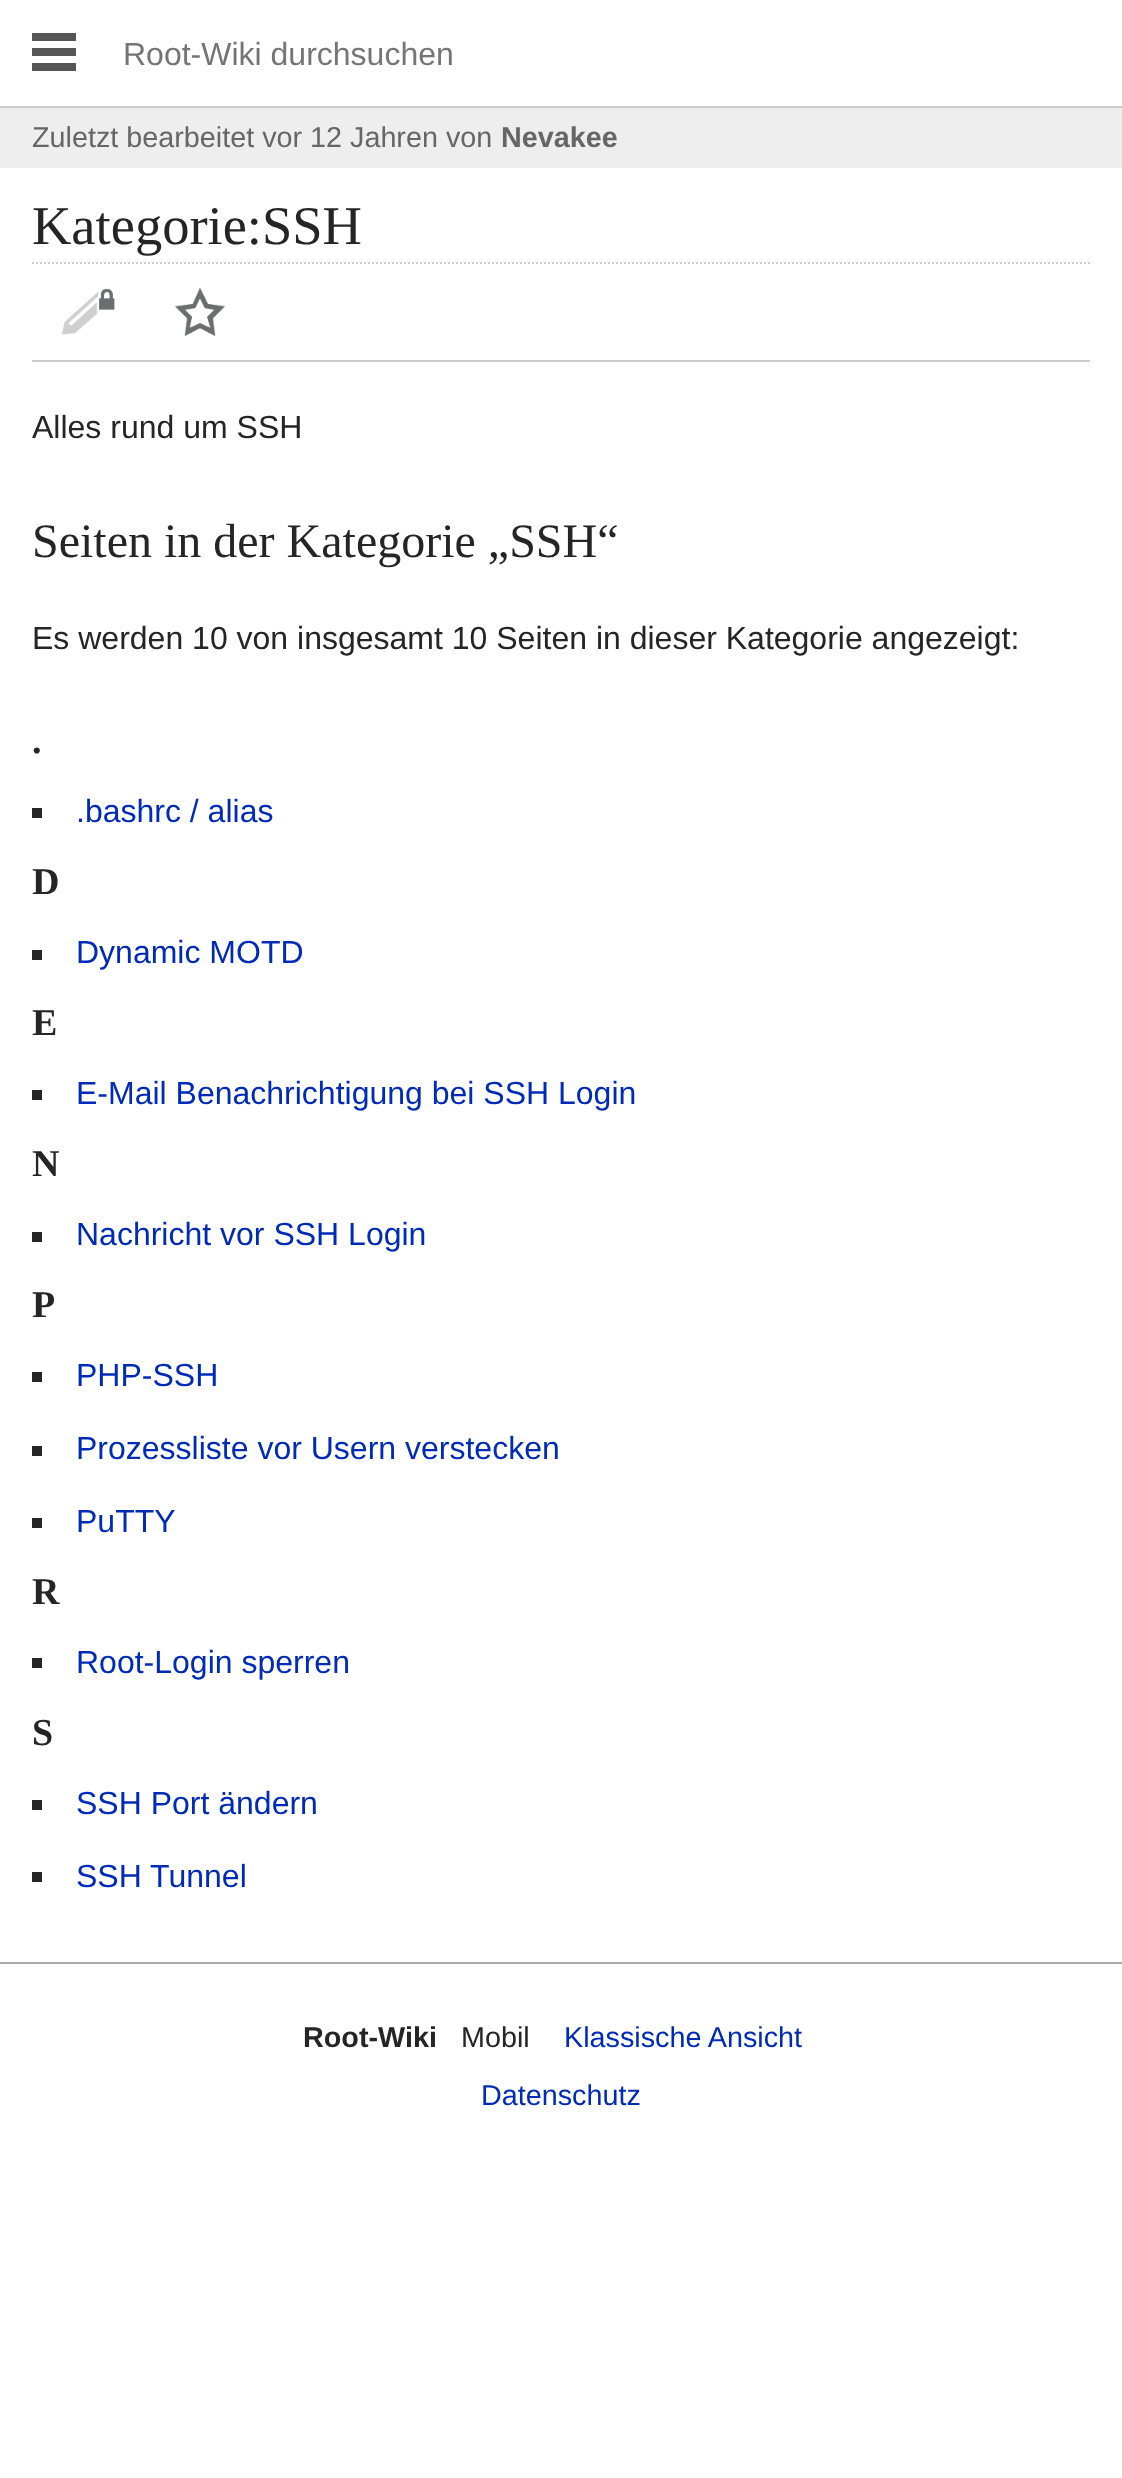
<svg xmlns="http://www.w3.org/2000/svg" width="1122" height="2478">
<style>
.a{font:32px Liberation Sans;fill:#757575}
.b{font:28.75px Liberation Sans;fill:#666}
.c{font:bold 28.75px Liberation Sans;fill:#666}
.d{font:54.5px Liberation Serif;fill:#252525}
.e{font:32px Liberation Sans;fill:#252525}
.f{font:48px Liberation Serif;fill:#252525}
.g{font:bold 38px Liberation Serif;fill:#252525}
.h{font:32px Liberation Sans;fill:#002bb8}
.i{font:bold 28.75px Liberation Sans;fill:#252525}
.j{font:28.75px Liberation Sans;fill:#252525}
.k{font:28.75px Liberation Sans;fill:#002bb8}
</style>
<rect width="100%" height="100%" fill="#fff"/>
<path fill="#ccc" d="M0 106h1122v2H0z"/>
<image href="1.png" x="32" y="33" width="44" height="38"/>
<path fill="#eee" d="M0 108h1122v60H0z"/>
<path fill="none" stroke="#ccc" stroke-width="2" stroke-dasharray="2 2" d="M32 263h1058"/>
<path fill="#ccc" d="M32 360h1058v2H32z"/>
<image href="2.png" x="61" y="288" width="54" height="47"/>
<image href="3.png" x="175" y="288" width="50" height="48"/>
<path fill="#252525" d="M32 808h10v10H32z"/>
<path fill="#252525" d="M32 950h10v10H32z"/>
<path fill="#252525" d="M32 1090h10v10H32z"/>
<path fill="#252525" d="M32 1232h10v10H32z"/>
<path fill="#252525" d="M32 1372h10v10H32z"/>
<path fill="#252525" d="M32 1446h10v10H32z"/>
<path fill="#252525" d="M32 1518h10v10H32z"/>
<path fill="#252525" d="M32 1658h10v10H32z"/>
<path fill="#252525" d="M32 1800h10v10H32z"/>
<path fill="#252525" d="M32 1872h10v10H32z"/>
<path fill="#aaa" d="M0 1962h1122v2H0z"/>
<text class="a" x="123" y="65">Root-Wiki durchsuchen</text>
<text class="b" x="32" y="147">Zuletzt bearbeitet vor 12 Jahren von</text>
<text class="c" x="501" y="147">Nevakee</text>
<text class="d" x="32" y="244">Kategorie:SSH</text>
<text class="e" x="32" y="438">Alles rund um SSH</text>
<text class="f" x="32" y="557">Seiten in der Kategorie „SSH“</text>
<text class="e" x="32" y="649">Es werden 10 von insgesamt 10 Seiten in dieser Kategorie angezeigt:</text>
<text class="g" x="32" y="753">.</text>
<text class="h" x="76" y="822">.bashrc / alias</text>
<text class="g" x="32" y="894">D</text>
<text class="h" x="76" y="963">Dynamic MOTD</text>
<text class="g" x="32" y="1035">E</text>
<text class="h" x="76" y="1104">E-Mail Benachrichtigung bei SSH Login</text>
<text class="g" x="32" y="1176">N</text>
<text class="h" x="76" y="1245">Nachricht vor SSH Login</text>
<text class="g" x="32" y="1317">P</text>
<text class="h" x="76" y="1386">PHP-SSH</text>
<text class="h" x="76" y="1459">Prozessliste vor Usern verstecken</text>
<text class="h" x="76" y="1532">PuTTY</text>
<text class="g" x="32" y="1604">R</text>
<text class="h" x="76" y="1673">Root-Login sperren</text>
<text class="g" x="32" y="1745">S</text>
<text class="h" x="76" y="1814">SSH Port ändern</text>
<text class="h" x="76" y="1887">SSH Tunnel</text>
<text class="i" x="303" y="2047">Root-Wiki</text>
<text class="j" x="461" y="2047">Mobil</text>
<text class="k" x="564" y="2047">Klassische Ansicht</text>
<text class="k" x="481" y="2105">Datenschutz</text>
</svg>
